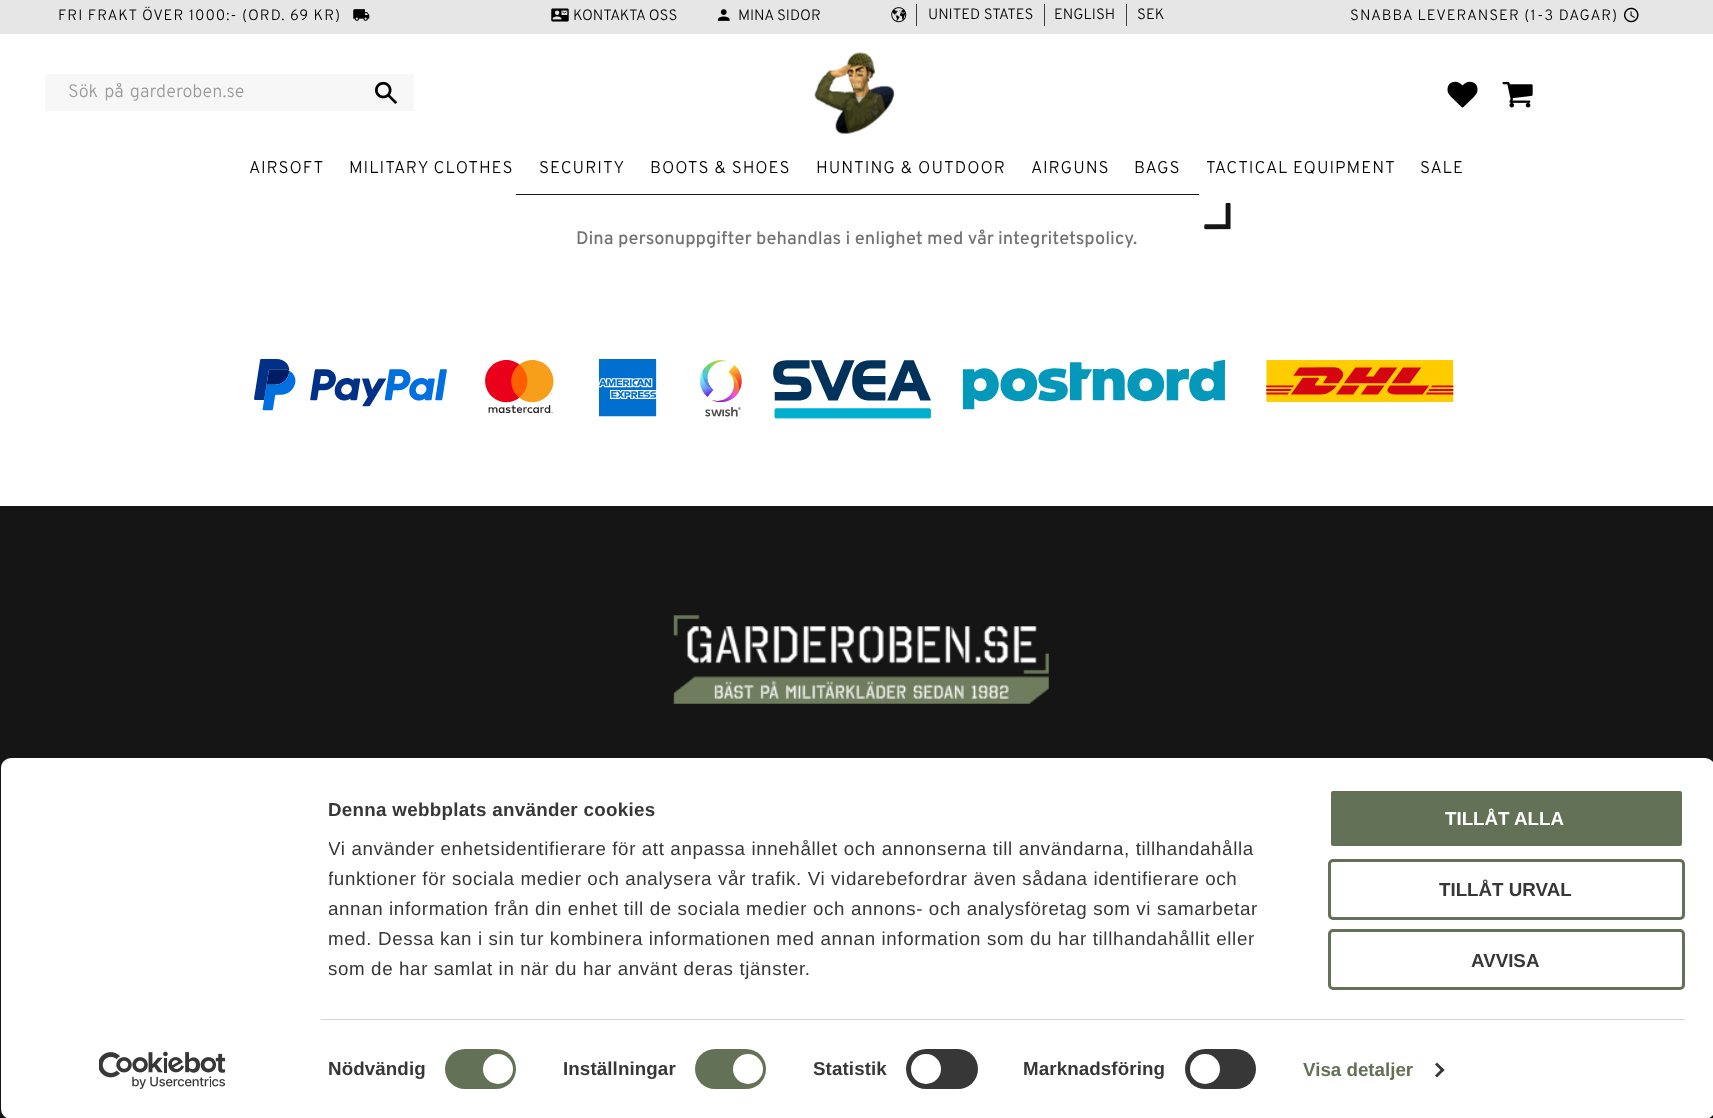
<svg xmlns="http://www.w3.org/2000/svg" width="1713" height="1118">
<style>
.a{font:300 15px Overpass;letter-spacing:1px;fill:#000}
.b{font:300 15px Overpass;fill:#000}
.c{font:300 18px Overpass;fill:#9b9b9b}
.d{font:300 17px Overpass;letter-spacing:1px;fill:#000}
.e{font:500 18.2px Overpass;fill:#737373}
.f{font:bold 18.75px Liberation Sans;letter-spacing:0.3px;fill:#373737}
.g{font:18.75px Liberation Sans;letter-spacing:0.62px;fill:#373737}
.h{font:bold 18.75px Liberation Sans;letter-spacing:0.1px;fill:#373737}
.i{font:bold 18.75px Liberation Sans;fill:#637156}
.j{font:bold 18.75px Liberation Sans;fill:#fff}
.k{font:bold 18.75px Liberation Sans;fill:#373737}
</style>
<defs>
<clipPath id="clip1"><path d="M329 795h962v189H329z"/></clipPath>
</defs>
<rect width="100%" height="100%" fill="#151515"/>
<path fill="#fff" d="M0 194h1713v312H0z"/>
<path fill="none" stroke="#151515" stroke-width="3" d="M517.5 114.5h680v79H517.5z"/>
<path fill="#fff" d="M0 34h1713v160H0z"/>
<path fill="#e6e6e6" d="M0 0h1713v34H0z"/>
<image href="1.png" x="353" y="9" width="17" height="12"/>
<image href="2.png" x="551" y="8" width="18" height="14"/>
<image href="3.png" x="717" y="9" width="13" height="12"/>
<image href="4.png" x="1624" y="7" width="15" height="16"/>
<image href="5.png" x="891" y="7" width="16" height="16"/>
<path fill="#3f3f3f" d="M916 4h1v22H916z"/>
<path fill="#3f3f3f" d="M1044 4h1v22H1044z"/>
<path fill="#3f3f3f" d="M1126 4h1v22H1126z"/>
<path fill="#f7f7f7" d="M45 74h369v37H45z"/>
<image href="6.png" x="375" y="81" width="22" height="23"/>
<image href="7.png" x="814" y="52" width="81" height="82"/>
<image href="8.png" x="1447" y="81" width="31" height="27"/>
<image href="9.png" x="1502" y="82" width="31" height="26"/>
<image href="10.png" x="1204" y="202" width="27" height="28"/>
<image href="11.png" x="254" y="359" width="1200" height="60"/>
<image href="12.png" x="673" y="615" width="376" height="89"/>
<rect fill="#fff" x="1" y="758" width="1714" height="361" rx="10"/>
<path fill="#d6d6d6" d="M321 1019h1364v1H321z"/>
<rect fill="#637156" x="445" y="1049" width="71" height="40" rx="20"/>
<circle fill="#fff" cx="498" cy="1069" r="15"/>
<rect fill="#637156" x="695" y="1049" width="71" height="40" rx="20"/>
<circle fill="#fff" cx="748" cy="1069" r="15"/>
<rect fill="#373737" x="906" y="1049" width="72" height="40" rx="20"/>
<circle fill="#fff" cx="926" cy="1069" r="15"/>
<rect fill="#373737" x="1185" y="1049" width="71" height="40" rx="20"/>
<circle fill="#fff" cx="1205" cy="1069" r="15"/>
<path fill="#373737" d="M1437 1062.5l7.5 7.5l-2 2l-7.5-7.5z"/>
<path fill="#373737" d="M1442.5 1068l2 2l-7.5 7.5l-2-2z"/>
<rect fill="#637156" stroke="#fff" stroke-width="3" x="1329.5" y="789.5" width="354" height="58" rx="3.5"/>
<rect fill="none" stroke="#637156" stroke-width="3" x="1329.5" y="860.5" width="354" height="58" rx="3.5"/>
<rect fill="none" stroke="#637156" stroke-width="3" x="1329.5" y="930.5" width="354" height="58" rx="3.5"/>
<image href="13.png" x="99" y="1051" width="126" height="38"/>
<text class="a" x="58" y="20">FRI FRAKT ÖVER 1000:- (ORD. 69 KR)</text>
<text class="b" x="573" y="20">KONTAKTA OSS</text>
<text class="b" x="738" y="20">MINA SIDOR</text>
<text class="a" x="1350" y="20">SNABBA LEVERANSER (1-3 DAGAR)</text>
<text class="b" x="928" y="19">UNITED STATES</text>
<text class="b" x="1054" y="19">ENGLISH</text>
<text class="b" x="1137" y="19">SEK</text>
<text class="c" x="68" y="97" word-spacing="2">Sök på garderoben.se</text>
<text class="d" x="249" y="173">AIRSOFT</text>
<text class="d" x="349" y="173">MILITARY CLOTHES</text>
<text class="d" x="539" y="173">SECURITY</text>
<text class="d" x="650" y="173">BOOTS &amp; SHOES</text>
<text class="d" x="816" y="173">HUNTING &amp; OUTDOOR</text>
<text class="d" x="1031" y="173">AIRGUNS</text>
<text class="d" x="1134" y="173">BAGS</text>
<text class="d" x="1206" y="173">TACTICAL EQUIPMENT</text>
<text class="d" x="1420" y="173">SALE</text>
<text class="e" x="576" y="244">Dina personuppgifter behandlas i enlighet med vår</text>
<text class="e" x="998" y="244">integritetspolicy</text>
<text class="e" x="1133" y="244">.</text>
<g clip-path="url(#clip1)">
<text class="f" x="328" y="816">Denna webbplats använder cookies</text>
<text class="g" x="328" y="855">Vi använder enhetsidentifierare för att anpassa innehållet och annonserna till användarna, tillhandahålla</text>
<text class="g" x="328" y="885">funktioner för sociala medier och analysera vår trafik. Vi vidarebefordrar även sådana identifierare och</text>
<text class="g" x="328" y="915">annan information från din enhet till de sociala medier och annons- och analysföretag som vi samarbetar</text>
</g>
<text class="g" x="328" y="945">med. Dessa kan i sin tur kombinera informationen med annan information som du har tillhandahållit eller</text>
<g clip-path="url(#clip1)">
<text class="g" x="328" y="975">som de har samlat in när du har använt deras tjänster.</text>
</g>
<text class="h" x="328" y="1075">Nödvändig</text>
<text class="h" x="563" y="1075">Inställningar</text>
<text class="h" x="813" y="1075">Statistik</text>
<text class="h" x="1023" y="1075">Marknadsföring</text>
<text class="i" x="1303" y="1076">Visa detaljer</text>
<text class="j" x="1445" y="825">TILLÅT ALLA</text>
<text class="k" x="1439" y="896">TILLÅT URVAL</text>
<text class="k" x="1471" y="967">AVVISA</text>
</svg>
